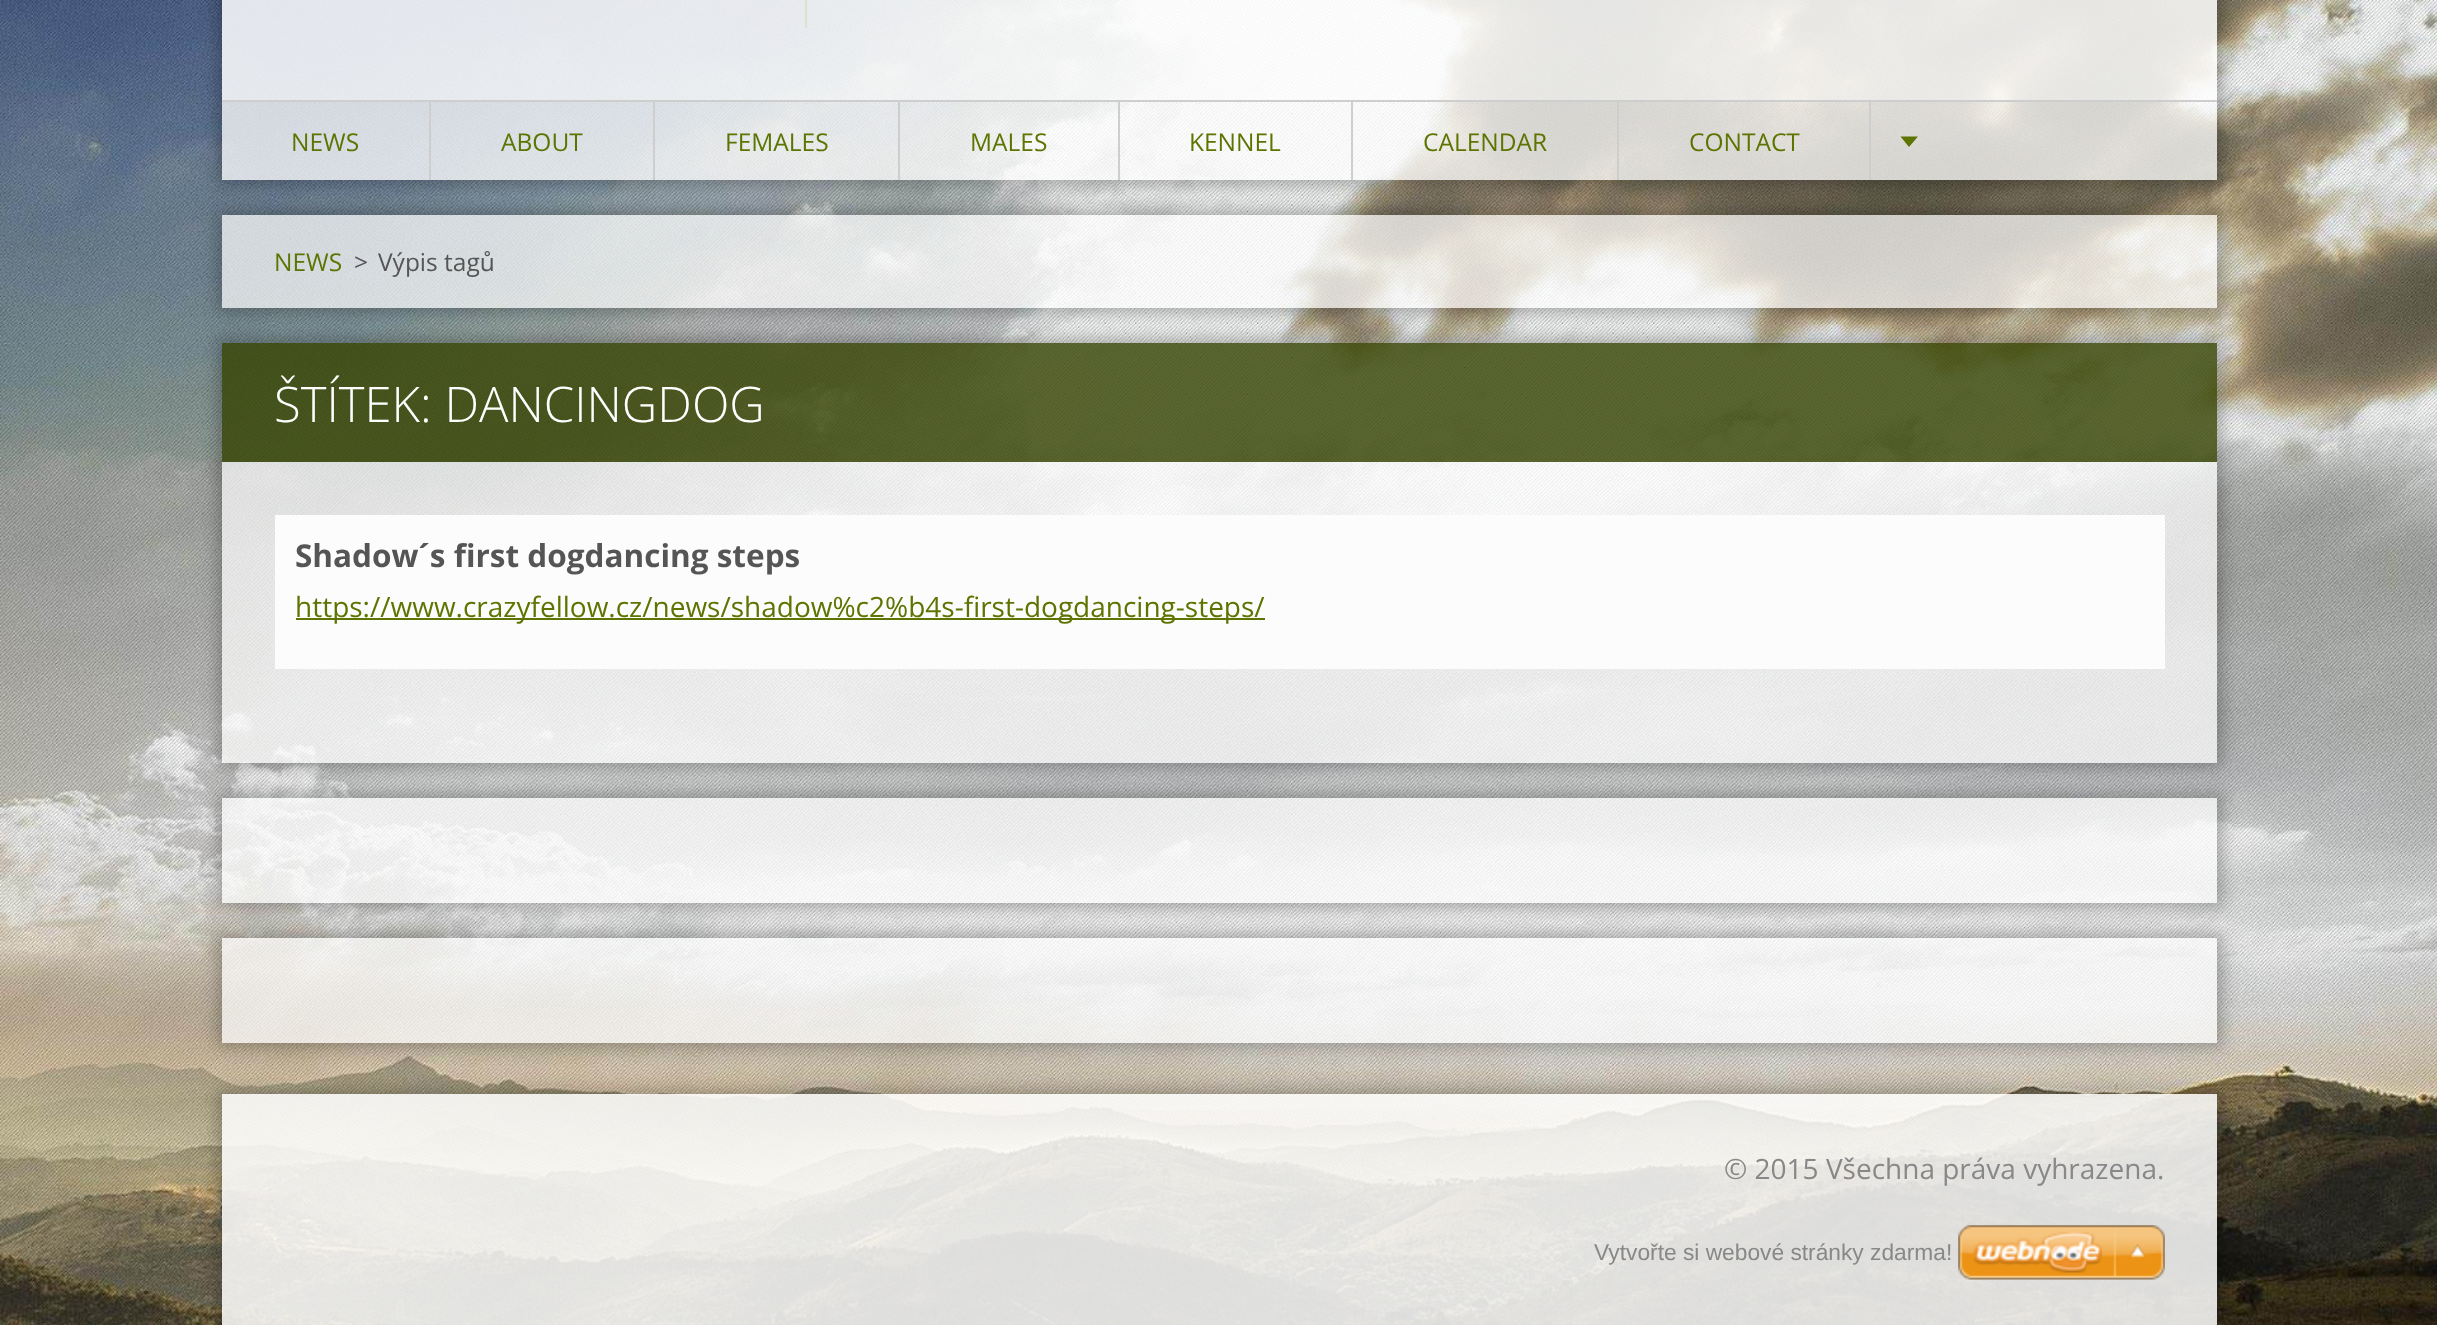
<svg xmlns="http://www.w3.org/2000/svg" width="2437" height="1325">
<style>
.a{font:24.5px Open Sans;fill:#5d7400}
.b{font:24.5px Open Sans;fill:#555}
.c{font:300 49px Open Sans;fill:#fff}
.d{font:bold 31.5px Open Sans;fill:#555}
.e{font:28px Open Sans;fill:#5d7400}
.f{font:28px Open Sans;fill:#888}
.g{font:22.75px Liberation Sans;fill:#888}
</style>
<defs>
<clipPath id="clip1"><path d="M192 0h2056v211h-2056zm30-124h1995v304h-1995z" clip-rule="evenodd"/></clipPath>
<clipPath id="clip2"><path d="M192 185h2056v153h-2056zm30 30h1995v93h-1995z" clip-rule="evenodd"/></clipPath>
<clipPath id="clip3"><path d="M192 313h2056v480h-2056zm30 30h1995v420h-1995z" clip-rule="evenodd"/></clipPath>
<clipPath id="clip4"><path d="M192 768h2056v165h-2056zm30 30h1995v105h-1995z" clip-rule="evenodd"/></clipPath>
<clipPath id="clip5"><path d="M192 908h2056v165h-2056zm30 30h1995v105h-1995z" clip-rule="evenodd"/></clipPath>
<clipPath id="clip6"><path d="M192 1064h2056v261h-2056zm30 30h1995v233h-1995z" clip-rule="evenodd"/></clipPath>
</defs>
<rect width="100%" height="100%" fill="#fff"/>
<image href="1.png" x="0" y="0" width="2437" height="1325"/>
<g clip-path="url(#clip1)">
<path fill="#00000040" filter="blur(8px)" d="M217 -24h2006v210H217z"/>
</g>
<path fill="#ffffffd9" d="M222 0h1995v100H222z"/>
<path fill="#dce2cf" d="M805 0h2v28H805z"/>
<path fill="#cecece" d="M222 100h1995v2H222z"/>
<path fill="#ffffffbf" d="M222 102h1995v78H222z"/>
<path fill="#cecece" d="M429 102h2v78H429z"/>
<path fill="#cecece" d="M653 102h2v78H653z"/>
<path fill="#cecece" d="M898 102h2v78H898z"/>
<path fill="#cecece" d="M1118 102h2v78H1118z"/>
<path fill="#cecece" d="M1351 102h2v78H1351z"/>
<path fill="#cecece" d="M1617 102h2v78H1617z"/>
<path fill="#cecece" d="M1869 102h2v78H1869z"/>
<path fill="#5d7400" d="M1900.5 136.5h17.5l-9 10.5z"/>
<g clip-path="url(#clip2)">
<path fill="#00000040" filter="blur(8px)" d="M217 210h2006v103H217z"/>
</g>
<path fill="#ffffffb3" d="M222 215h1995v93H222z"/>
<g clip-path="url(#clip3)">
<path fill="#00000040" filter="blur(8px)" d="M217 338h2006v430H217z"/>
</g>
<path fill="#354200cc" d="M222 343h1995v119H222z"/>
<path fill="#ffffffb3" d="M222 462h1995v249H222z"/>
<path fill="#fcfcfc" d="M275 515h1890v154H275z"/>
<path fill="#5d7400" d="M296 618h969v2H296z"/>
<path fill="#ffffffb3" d="M222 711h1995v52H222z"/>
<g clip-path="url(#clip4)">
<path fill="#00000040" filter="blur(8px)" d="M217 793h2006v115H217z"/>
</g>
<path fill="#ffffffb3" d="M222 798h1995v53H222z"/>
<path fill="#ffffffb3" d="M222 851h1995v52H222z"/>
<g clip-path="url(#clip5)">
<path fill="#00000040" filter="blur(8px)" d="M217 933h2006v115H217z"/>
</g>
<path fill="#ffffffb3" d="M222 938h1995v53H222z"/>
<path fill="#ffffffb3" d="M222 991h1995v52H222z"/>
<g clip-path="url(#clip6)">
<path fill="#00000040" filter="blur(8px)" d="M217 1089h2006v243H217z"/>
</g>
<path fill="#ffffffd9" d="M222 1094h1995v231H222z"/>
<image href="2.png" x="1958" y="1225" width="207" height="55"/>
<text class="a" x="291" y="151">NEWS</text>
<text class="a" x="501" y="151">ABOUT</text>
<text class="a" x="725" y="151">FEMALES</text>
<text class="a" x="970" y="151">MALES</text>
<text class="a" x="1189" y="151">KENNEL</text>
<text class="a" x="1423" y="151">CALENDAR</text>
<text class="a" x="1689" y="151">CONTACT</text>
<text class="a" x="274" y="271">NEWS</text>
<text class="b" x="354" y="271">&gt;</text>
<text class="b" x="378" y="271">Výpis tagů</text>
<text class="c" x="274" y="422">ŠTÍTEK: DANCINGDOG</text>
<text class="d" x="295" y="567">Shadow´s first dogdancing steps</text>
<text class="e" x="295" y="617">https://www.crazyfellow.cz/news/shadow%c2%b4s-first-dogdancing-steps/</text>
<text class="f" x="1724" y="1179">© 2015 Všechna práva vyhrazena.</text>
<text class="g" x="1594" y="1260">Vytvořte si webové stránky zdarma!</text>
</svg>
